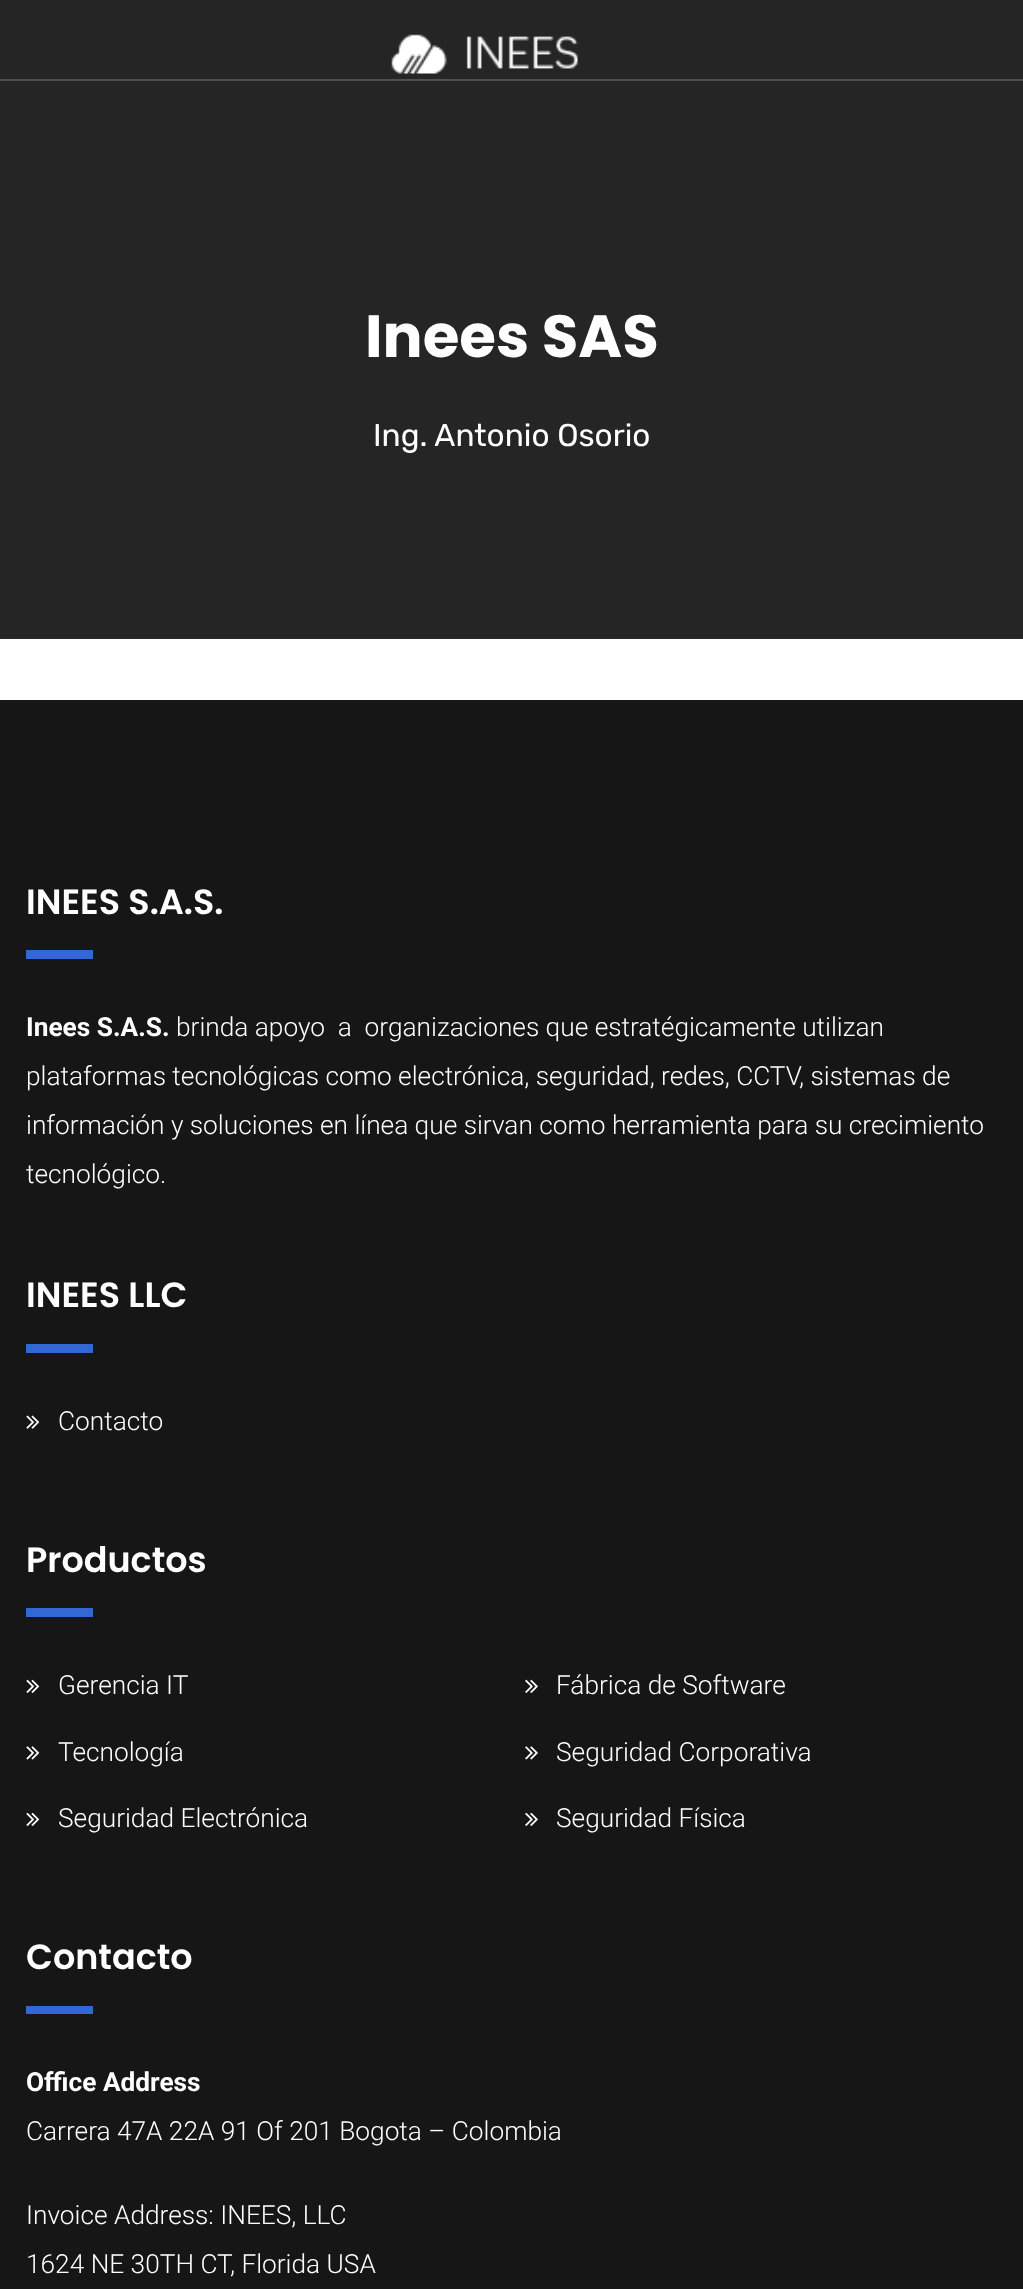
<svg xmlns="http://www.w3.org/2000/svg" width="1023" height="2289">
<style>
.a{font:bold 59.5px Poppins;fill:#fff}
.b{font:31.5px Rubik;fill:#fff}
.c{font:600 35px Poppins;fill:#fff}
.d{font:bold 26.25px Roboto;fill:#fff}
.e{font:300 26.25px Roboto;fill:#fff}
</style>
<rect width="100%" height="100%" fill="#fff"/>
<path fill="#252525" d="M0 0h1023v637H0z"/>
<path fill="#515151" d="M0 79h1023v2H0z"/>
<image href="1.png" x="391" y="34" width="187" height="40"/>
<path fill="#272727" d="M0 637h1023v2H0z"/>
<path fill="#161616" d="M0 700h1023v1589H0z"/>
<path fill="#3367d6" d="M26 950h67v9H26z"/>
<path fill="#3367d6" d="M26 1344h67v9H26z"/>
<image href="2.png" x="26" y="1415" width="14" height="14"/>
<path fill="#3367d6" d="M26 1608h67v9H26z"/>
<image href="3.png" x="26" y="1679" width="14" height="14"/>
<image href="4.png" x="525" y="1679" width="13" height="14"/>
<image href="5.png" x="26" y="1746" width="14" height="14"/>
<image href="6.png" x="525" y="1746" width="13" height="14"/>
<image href="3.png" x="26" y="1812" width="14" height="14"/>
<image href="4.png" x="525" y="1812" width="13" height="14"/>
<path fill="#3367d6" d="M26 2006h67v8H26z"/>
<text class="a" x="365" y="357">Inees SAS</text>
<text class="b" x="373" y="446">Ing. Antonio Osorio</text>
<text class="c" x="26" y="914">INEES S.A.S.</text>
<text class="d" x="26" y="1036">Inees S.A.S.</text>
<text class="e" xml:space="preserve" x="176" y="1036">brinda apoyo  a  organizaciones que estratégicamente utilizan</text>
<text class="e" x="26" y="1085">plataformas tecnológicas como electrónica, seguridad, redes, CCTV, sistemas de</text>
<text class="e" x="26" y="1134">información y soluciones en línea que sirvan como herramienta para su crecimiento</text>
<text class="e" x="26" y="1183">tecnológico.</text>
<text class="c" x="26" y="1307">INEES LLC</text>
<text class="e" x="58" y="1430">Contacto</text>
<text class="c" x="26" y="1572">Productos</text>
<text class="e" x="58" y="1694">Gerencia IT</text>
<text class="e" x="556" y="1694">Fábrica de Software</text>
<text class="e" x="58" y="1761">Tecnología</text>
<text class="e" x="556" y="1761">Seguridad Corporativa</text>
<text class="e" x="58" y="1827">Seguridad Electrónica</text>
<text class="e" x="556" y="1827">Seguridad Física</text>
<text class="c" x="26" y="1969">Contacto</text>
<text class="d" x="26" y="2091">Office Address</text>
<text class="e" x="26" y="2140">Carrera 47A 22A 91 Of 201 Bogota – Colombia</text>
<text class="e" x="26" y="2224">Invoice Address: INEES, LLC</text>
<text class="e" x="26" y="2273">1624 NE 30TH CT, Florida USA</text>
</svg>
